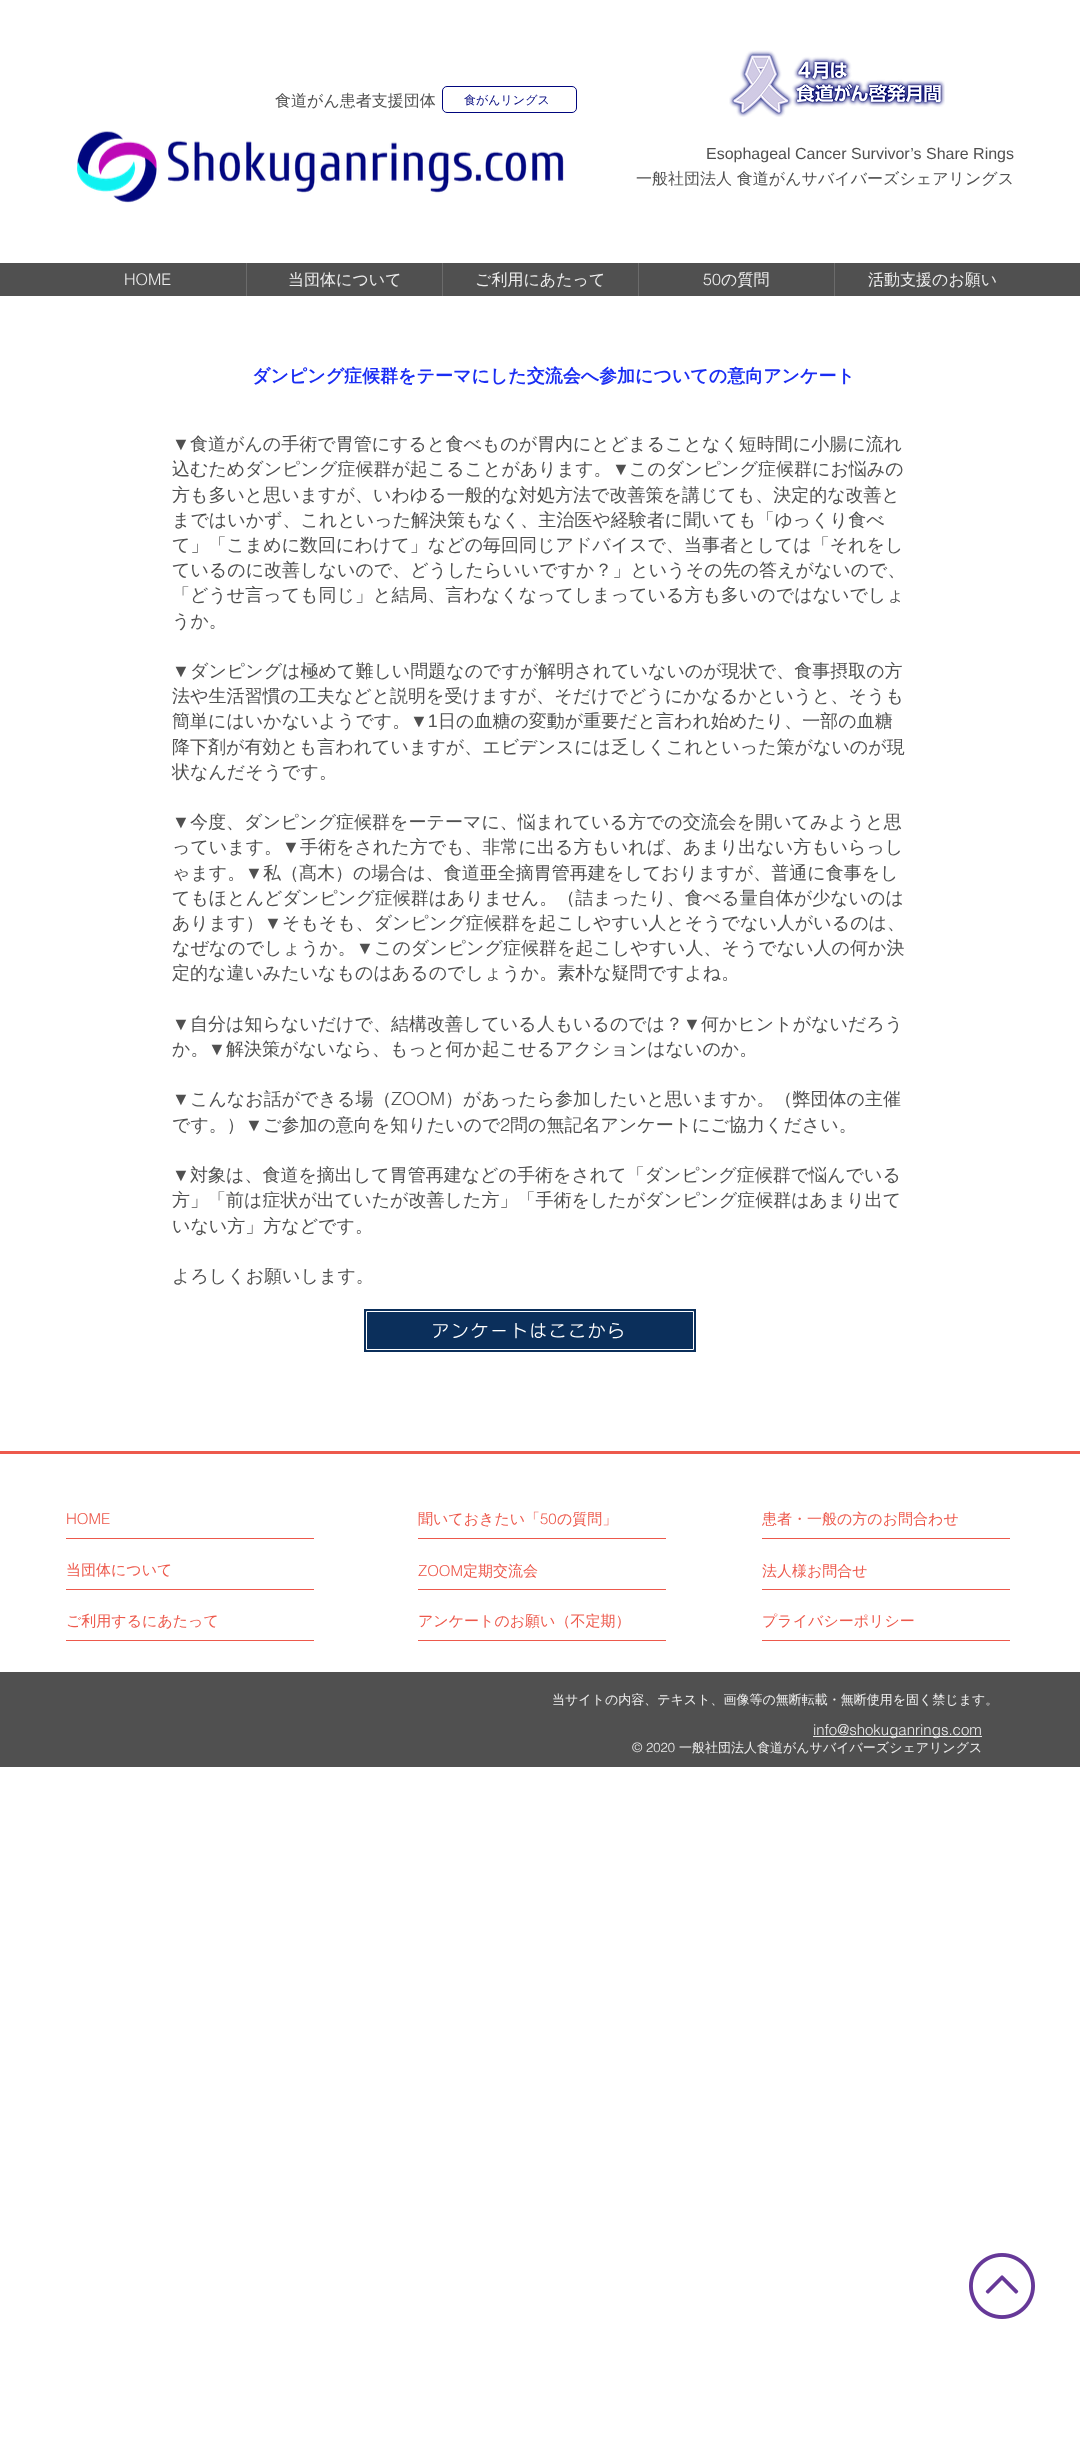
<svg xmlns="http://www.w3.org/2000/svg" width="1080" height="2449">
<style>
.a{font:500 16px WenQuanYi Zen Hei;fill:#505050}
.b{font:500 12px WenQuanYi Zen Hei;fill:#00067e}
.c{font:16px Liberation Sans;fill:#505050}
.d{font:300 16px helvetica;fill:#eee}
.e{font:500 16px WenQuanYi Zen Hei;fill:#eee}
.f{font:bold 18px WenQuanYi Zen Hei;fill:#1a2df3}
.g{font:18px Liberation Sans;fill:#505050}
.h{font:500 18px WenQuanYi Zen Hei;fill:#505050}
.i{font:300 18px helvetica;fill:#505050}
.j{font:500 17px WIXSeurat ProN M;letter-spacing:2.5px;fill:#fff}
.k{font:300 15px helvetica;fill:#ed594c}
.l{font:500 15px WenQuanYi Zen Hei;fill:#ed594c}
.m{font:500 13px WenQuanYi Zen Hei;fill:#eee}
.n{font:300 15px helvetica;fill:#eee}
.o{font:300 13px helvetica;fill:#eee}
</style>
<rect width="100%" height="100%" fill="#fff"/>
<rect fill="none" stroke="#00067e" x="442.5" y="86.5" width="134" height="26" rx="4.5"/>
<image href="1.png" x="729" y="50" width="216" height="67"/>
<image href="2.png" x="77" y="131" width="487" height="72"/>
<path fill="#505050" d="M0 263h1080v33H0z"/>
<path fill="#6b6b6b" d="M246 263h1v33H246z"/>
<path fill="#6b6b6b" d="M442 263h1v33H442z"/>
<path fill="#6b6b6b" d="M638 263h1v33H638z"/>
<path fill="#6b6b6b" d="M834 263h1v33H834z"/>
<path fill="#0b2f5b" d="M364 1309h332v43H364z"/>
<path fill="none" stroke="#fff" d="M366.5 1311.5h327v38H366.5z"/>
<path fill="#ed594c" d="M0 1451h1080v3H0z"/>
<path fill="#ed594c" d="M66 1538h248v1H66z"/>
<path fill="#ed594c" d="M418 1538h248v1H418z"/>
<path fill="#ed594c" d="M762 1538h248v1H762z"/>
<path fill="#ed594c" d="M66 1589h248v1H66z"/>
<path fill="#ed594c" d="M418 1589h248v1H418z"/>
<path fill="#ed594c" d="M762 1589h248v1H762z"/>
<path fill="#ed594c" d="M418 1640h248v1H418z"/>
<path fill="#ed594c" d="M66 1640h248v1H66z"/>
<path fill="#ed594c" d="M762 1640h248v1H762z"/>
<path fill="#505050" d="M0 1672h1080v95H0z"/>
<path fill="#eee" d="M813 1736h169v1H813z"/>
<image href="3.png" x="969" y="2253" width="66" height="66"/>
<text class="a" x="275" y="106">食道がん患者支援団体</text>
<text class="b" x="464" y="104">食がんリングス</text>
<text class="c" x="706" y="159">Esophageal Cancer Survivor’s Share Rings</text>
<text class="a" x="636" y="184">一般社団法人 食道がんサバイバーズシェアリングス</text>
<text class="d" x="124" y="285">HOME</text>
<text class="e" x="288" y="285">当団体について</text>
<text class="e" x="475" y="285">ご利用にあたって</text>
<text class="d" x="703" y="285">50</text>
<text class="e" x="721" y="285">の質問</text>
<text class="e" x="868" y="285">活動支援のお願い</text>
<text class="f" x="252" y="382">ダンピング症候群をテーマにした交流会へ参加についての意向アンケート</text>
<text class="g" x="172" y="450">▼</text>
<text class="h" x="190" y="450">食道がんの手術で胃管にすると食べものが胃内にとどまることなく短時間に小腸に流れ</text>
<text class="h" x="172" y="475">込むためダンピング症候群が起こることがあります。</text>
<text class="g" x="612" y="475">▼</text>
<text class="h" x="629" y="475">このダンピング症候群にお悩みの</text>
<text class="h" x="172" y="501">方も多いと思いますが、いわゆる一般的な対処方法で改善策を講じても、決定的な改善と</text>
<text class="h" x="172" y="526">まではいかず、これといった解決策もなく、主治医や経験者に聞いても「ゆっくり食べ</text>
<text class="h" x="172" y="551">て」「こまめに数回にわけて」などの毎回同じアドバイスで、当事者としては「それをし</text>
<text class="h" x="172" y="576">ているのに改善しないので、どうしたらいいですか？」というその先の答えがないので、</text>
<text class="h" x="172" y="601">「どうせ言っても同じ」と結局、言わなくなってしまっている方も多いのではないでしょ</text>
<text class="h" x="172" y="627">うか。</text>
<text class="g" x="172" y="677">▼</text>
<text class="h" x="190" y="677">ダンピングは極めて難しい問題なのですが解明されていないのが現状で、食事摂取の方</text>
<text class="h" x="172" y="702">法や生活習慣の工夫などと説明を受けますが、そだけでどうにかなるかというと、そうも</text>
<text class="h" x="172" y="727">簡単にはいかないようです。</text>
<text class="g" x="410" y="727">▼1</text>
<text class="h" x="438" y="727">日の血糖の変動が重要だと言われ始めたり、一部の血糖</text>
<text class="h" x="172" y="753">降下剤が有効とも言われていますが、エビデンスには乏しくこれといった策がないのが現</text>
<text class="h" x="172" y="778">状なんだそうです。</text>
<text class="g" x="172" y="828">▼</text>
<text class="h" x="190" y="828">今度、ダンピング症候群をーテーマに、悩まれている方での交流会を開いてみようと思</text>
<text class="h" x="172" y="853">っています。</text>
<text class="g" x="282" y="853">▼</text>
<text class="h" x="300" y="853">手術をされた方でも、非常に出る方もいれば、あまり出ない方もいらっし</text>
<text class="h" x="172" y="879">ゃます。</text>
<text class="g" x="245" y="879">▼</text>
<text class="h" x="263" y="879">私（髙木）の場合は、食道亜全摘胃管再建をしておりますが、普通に食事をし</text>
<text class="h" x="172" y="904">てもほとんどダンピング症候群はありません。（詰まったり、食べる量自体が少ないのは</text>
<text class="h" x="172" y="929">あります）</text>
<text class="g" x="264" y="929">▼</text>
<text class="h" x="282" y="929">そもそも、ダンピング症候群を起こしやすい人とそうでない人がいるのは、</text>
<text class="h" x="172" y="954">なぜなのでしょうか。</text>
<text class="g" x="356" y="954">▼</text>
<text class="h" x="374" y="954">このダンピング症候群を起こしやすい人、そうでない人の何か決</text>
<text class="h" x="172" y="979">定的な違いみたいなものはあるのでしょうか。素朴な疑問ですよね。</text>
<text class="g" x="172" y="1030">▼</text>
<text class="h" x="190" y="1030">自分は知らないだけで、結構改善している人もいるのでは？</text>
<text class="g" x="683" y="1030">▼</text>
<text class="h" x="701" y="1030">何かヒントがないだろう</text>
<text class="h" x="172" y="1055">か。</text>
<text class="g" x="208" y="1055">▼</text>
<text class="h" x="226" y="1055">解決策がないなら、もっと何か起こせるアクションはないのか。</text>
<text class="g" x="172" y="1105">▼</text>
<text class="h" x="190" y="1105">こんなお話ができる場（</text>
<text class="i" x="391" y="1105">ZOOM</text>
<text class="h" x="445" y="1105">）があったら参加したいと思いますか。（弊団体の主催</text>
<text class="h" x="172" y="1131">です。）</text>
<text class="g" x="245" y="1131">▼</text>
<text class="h" x="263" y="1131">ご参加の意向を知りたいので</text>
<text class="i" x="500" y="1131">2</text>
<text class="h" x="510" y="1131">問の無記名アンケートにご協力ください。</text>
<text class="g" x="172" y="1181">▼</text>
<text class="h" x="190" y="1181">対象は、食道を摘出して胃管再建などの手術をされて「ダンピング症候群で悩んでいる</text>
<text class="h" x="172" y="1206">方」「前は症状が出ていたが改善した方」「手術をしたがダンピング症候群はあまり出て</text>
<text class="h" x="172" y="1232">いない方」方などです。</text>
<text class="h" x="172" y="1282">よろしくお願いします。</text>
<text class="j" x="432" y="1337">アンケートはここから</text>
<text class="k" x="66" y="1524">HOME</text>
<text class="l" x="418" y="1524">聞いておきたい「</text>
<text class="k" x="540" y="1524">50</text>
<text class="l" x="557" y="1524">の質問」</text>
<text class="l" x="762" y="1524">患者・一般の方のお問合わせ</text>
<text class="l" x="66" y="1575">当団体について</text>
<text class="k" x="418" y="1576">ZOOM</text>
<text class="l" x="463" y="1576">定期交流会</text>
<text class="l" x="762" y="1576">法人様お問合せ</text>
<text class="l" x="66" y="1626">ご利用するにあたって</text>
<text class="l" x="418" y="1626">アンケートのお願い（不定期）</text>
<text class="l" x="762" y="1626">プライバシーポリシー</text>
<text class="m" x="552" y="1704">当サイトの内容、テキスト、画像等の無断転載・無断使用を固く禁じます。</text>
<text class="n" x="813" y="1735">info@shokuganrings.com</text>
<text class="o" x="632" y="1752">© 2020</text>
<text class="m" x="679" y="1752">一般社団法人食道がんサバイバーズシェアリングス</text>
</svg>
